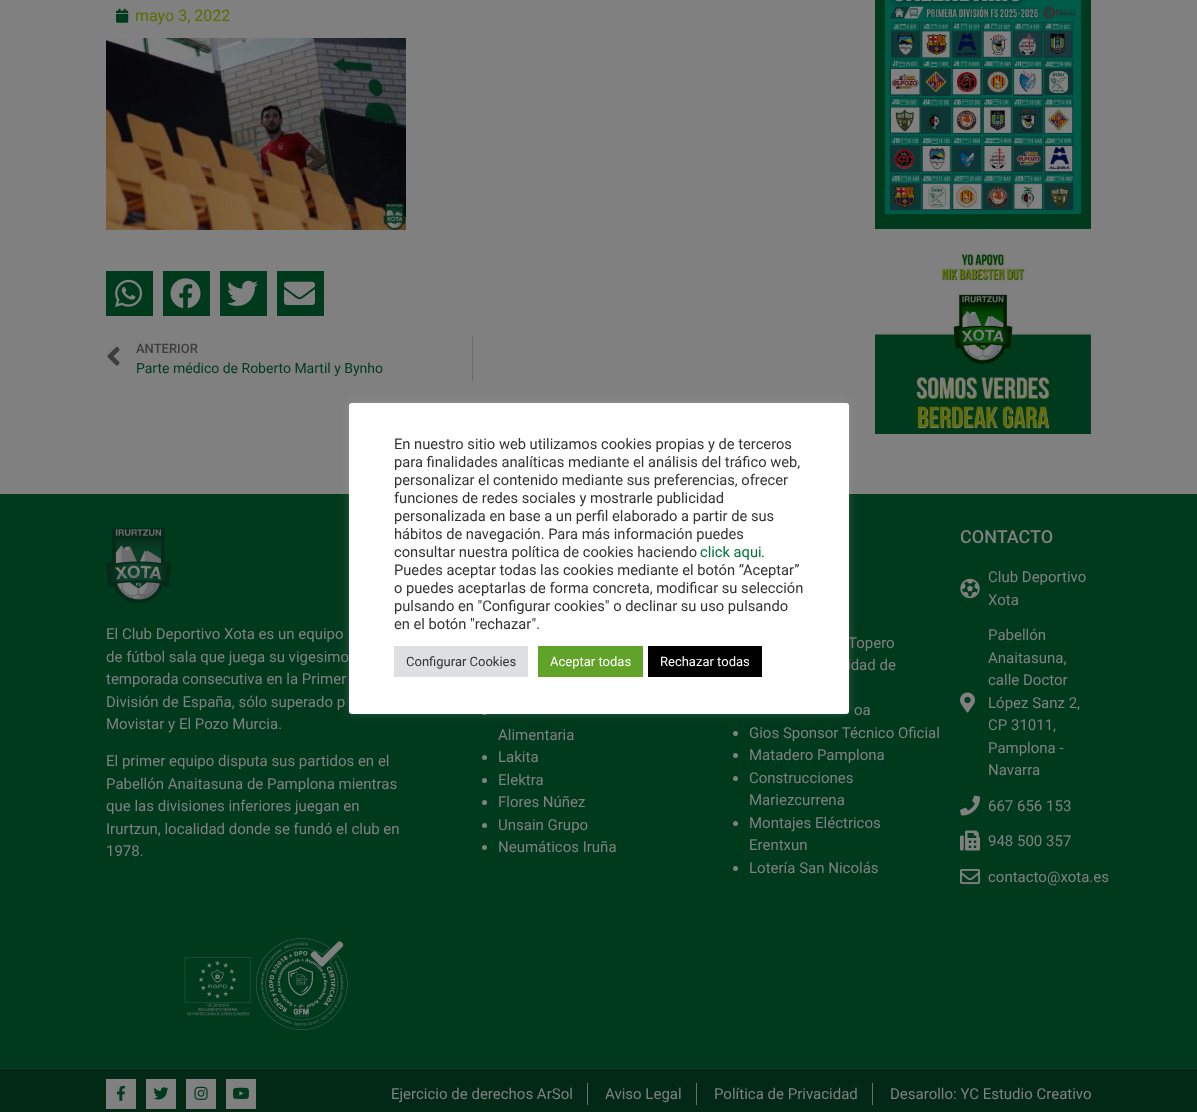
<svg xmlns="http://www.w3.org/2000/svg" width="1197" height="1112">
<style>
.a{font:16px Roboto;fill:#586e01}
.b{font:500 13px Roboto;fill:#3d3d3d}
.c{font:14px Roboto;fill:#003a1c}
.d{font:15px Roboto;fill:#808080}
.e{font:13px Roboto;fill:#fff}
.f{font:13px Roboto;fill:#333}
.g{font:14.7px Roboto;fill:#333}
.h{font:14.7px Roboto;fill:#007437}
.i{font:500 18px Roboto;fill:#808080}
</style>
<rect width="100%" height="100%" fill="#808080"/>
<image href="1.png" x="116" y="8" width="13" height="15"/>
<image href="2.png" x="106" y="38" width="300" height="192"/>
<path fill="none" stroke="#003a1c" stroke-width="2" d="M107 272h45v43H107z"/>
<path fill="#003a1c" d="M108 273h43v41H108z"/>
<image href="3.png" x="115" y="279" width="28" height="28"/>
<path fill="none" stroke="#003a1c" stroke-width="2" d="M164 272h45v43H164z"/>
<path fill="#003a1c" d="M165 273h43v41H165z"/>
<image href="4.png" x="170" y="278" width="31" height="31"/>
<path fill="none" stroke="#003a1c" stroke-width="2" d="M221 272h45v43H221z"/>
<path fill="#003a1c" d="M222 273h43v41H222z"/>
<image href="5.png" x="227" y="280" width="31" height="26"/>
<path fill="none" stroke="#003a1c" stroke-width="2" d="M278 272h45v43H278z"/>
<path fill="#003a1c" d="M279 273h43v41H279z"/>
<image href="6.png" x="284" y="281" width="31" height="24"/>
<image href="7.png" x="107" y="346" width="13" height="20"/>
<path fill="#6a6a6a" d="M472 336h1v45H472z"/>
<path fill="#003a1c" d="M875 0h216v229H875z"/>
<image href="8.png" x="885" y="0" width="196" height="214"/>
<image href="9.png" x="875" y="254" width="216" height="180"/>
<path fill="#003a1c" d="M0 494h1197v574H0z"/>
<circle fill="#808080" cx="484.5" cy="712.5" r="2.5"/>
<rect fill="#acabab4d" filter="blur(5px)" x="349" y="402" width="500" height="311" rx="3"/>
<image href="10.png" x="106" y="528" width="65" height="75"/>
<image href="11.png" x="184" y="938" width="164" height="92"/>
<circle fill="#808080" cx="484.5" cy="757.5" r="2.5"/>
<circle fill="#808080" cx="484.5" cy="780.5" r="2.5"/>
<circle fill="#808080" cx="484.5" cy="802.5" r="2.5"/>
<circle fill="#808080" cx="484.5" cy="825.5" r="2.5"/>
<circle fill="#808080" cx="484.5" cy="847.5" r="2.5"/>
<circle fill="#808080" cx="735.5" cy="733.5" r="2.5"/>
<circle fill="#808080" cx="735.5" cy="755.5" r="2.5"/>
<circle fill="#808080" cx="735.5" cy="778.5" r="2.5"/>
<circle fill="#808080" cx="735.5" cy="823.5" r="2.5"/>
<circle fill="#808080" cx="735.5" cy="868.5" r="2.5"/>
<image href="12.png" x="960" y="578" width="20" height="21"/>
<image href="13.png" x="960" y="692" width="15" height="21"/>
<image href="14.png" x="960" y="795" width="20" height="21"/>
<image href="15.png" x="960" y="830" width="20" height="21"/>
<image href="16.png" x="960" y="869" width="20" height="15"/>
<path fill="#022915" d="M0 1069h1197v43H0z"/>
<path fill="#1a3a29" d="M0 1068h1197v1H0z"/>
<path fill="#808080" d="M106 1079h30v30H106z"/>
<image href="17.png" x="117" y="1085" width="8" height="16"/>
<path fill="#808080" d="M146 1079h30v30H146z"/>
<image href="18.png" x="153" y="1087" width="16" height="13"/>
<path fill="#808080" d="M186 1079h30v30H186z"/>
<image href="19.png" x="194" y="1086" width="14" height="14"/>
<path fill="#808080" d="M226 1079h30v30H226z"/>
<image href="20.png" x="233" y="1087" width="16" height="12"/>
<path fill="#6f6f6f" d="M587 1083h1v22H587z"/>
<path fill="#6f6f6f" d="M696 1083h1v22H696z"/>
<path fill="#6f6f6f" d="M872 1083h1v22H872z"/>
<text class="a" x="135" y="21">mayo 3, 2022</text>
<text class="b" x="136" y="353">ANTERIOR</text>
<text class="c" x="136" y="373">Parte médico de Roberto Martil y Bynho</text>
<text class="d" x="106" y="639">El Club Deportivo Xota es un equipo</text>
<text class="d" x="106" y="662">de fútbol sala que juega su vigesimo</text>
<text class="d" x="106" y="684">temporada consecutiva en la Primer</text>
<text class="d" x="106" y="707">División de España, sólo superado p</text>
<text class="d" x="106" y="729">Movistar y El Pozo Murcia.</text>
<text class="d" x="106" y="766">El primer equipo disputa sus partidos en el</text>
<text class="d" x="106" y="789">Pabellón Anaitasuna de Pamplona mientras</text>
<text class="d" x="106" y="811">que las divisiones inferiores juegan en</text>
<text class="d" x="106" y="834">Irurtzun, localidad donde se fundó el club en</text>
<text class="d" x="106" y="856">1978.</text>
<text class="d" x="498" y="740">Alimentaria</text>
<text class="d" x="498" y="762">Lakita</text>
<text class="d" x="498" y="785">Elektra</text>
<text class="d" x="498" y="807">Flores Núñez</text>
<text class="d" x="498" y="830">Unsain Grupo</text>
<text class="d" x="498" y="852">Neumáticos Iruña</text>
<text class="d" x="848" y="648">Topero</text>
<text class="d" x="847" y="670">idad de</text>
<rect fill="#fff" x="349" y="403" width="500" height="311" rx="3"/>
<path fill="#000" d="M648 646h114v31H648z"/>
<text class="e" x="660" y="666">Rechazar todas</text>
<path fill="#61a229" d="M538 646h105v31H538z"/>
<text class="e" x="550" y="666">Aceptar todas</text>
<path fill="#dedfe0" d="M394 646h134v31H394z"/>
<text class="f" x="406" y="666">Configurar Cookies</text>
<text class="g" x="394" y="629">en el botón "rechazar".</text>
<text class="g" x="394" y="611">pulsando en "Configurar cookies" o declinar su uso pulsando</text>
<text class="g" x="394" y="593">o puedes aceptarlas de forma concreta, modificar su selección</text>
<text class="g" x="394" y="575">Puedes aceptar todas las cookies mediante el botón “Aceptar”</text>
<text class="g" x="761" y="557">.</text>
<text class="h" x="700" y="557">click aqui</text>
<text class="g" x="394" y="557">consultar nuestra política de cookies haciendo</text>
<text class="g" x="394" y="539">hábitos de navegación. Para más información puedes</text>
<text class="g" x="394" y="521">personalizada en base a un perfil elaborado a partir de sus</text>
<text class="g" x="394" y="503">funciones de redes sociales y mostrarle publicidad</text>
<text class="g" x="394" y="485">personalizar el contenido mediante sus preferencias, ofrecer</text>
<text class="g" x="394" y="467">para finalidades analíticas mediante el análisis del tráfico web,</text>
<text class="g" x="394" y="449">En nuestro sitio web utilizamos cookies propias y de terceros</text>
<text class="d" x="854" y="715">oa</text>
<text class="d" x="749" y="738">Gios Sponsor Técnico Oficial</text>
<text class="d" x="749" y="760">Matadero Pamplona</text>
<text class="d" x="749" y="783">Construcciones</text>
<text class="d" x="749" y="805">Mariezcurrena</text>
<text class="d" x="749" y="828">Montajes Eléctricos</text>
<text class="d" x="749" y="850">Erentxun</text>
<text class="d" x="749" y="873">Lotería San Nicolás</text>
<text class="i" x="960" y="543">CONTACTO</text>
<text class="d" x="988" y="582">Club Deportivo</text>
<text class="d" x="988" y="605">Xota</text>
<text class="d" x="988" y="640">Pabellón</text>
<text class="d" x="988" y="663">Anaitasuna,</text>
<text class="d" x="988" y="685">calle Doctor</text>
<text class="d" x="988" y="708">López Sanz 2,</text>
<text class="d" x="988" y="730">CP 31011,</text>
<text class="d" x="988" y="753">Pamplona -</text>
<text class="d" x="988" y="775">Navarra</text>
<text class="d" x="988" y="811">667 656 153</text>
<text class="d" x="988" y="846">948 500 357</text>
<text class="d" x="988" y="882">contacto@xota.es</text>
<text class="d" x="391" y="1099">Ejercicio de derechos ArSol</text>
<text class="d" x="605" y="1099">Aviso Legal</text>
<text class="d" x="714" y="1099">Política de Privacidad</text>
<text class="d" x="890" y="1099">Desarollo: YC Estudio Creativo</text>
</svg>
